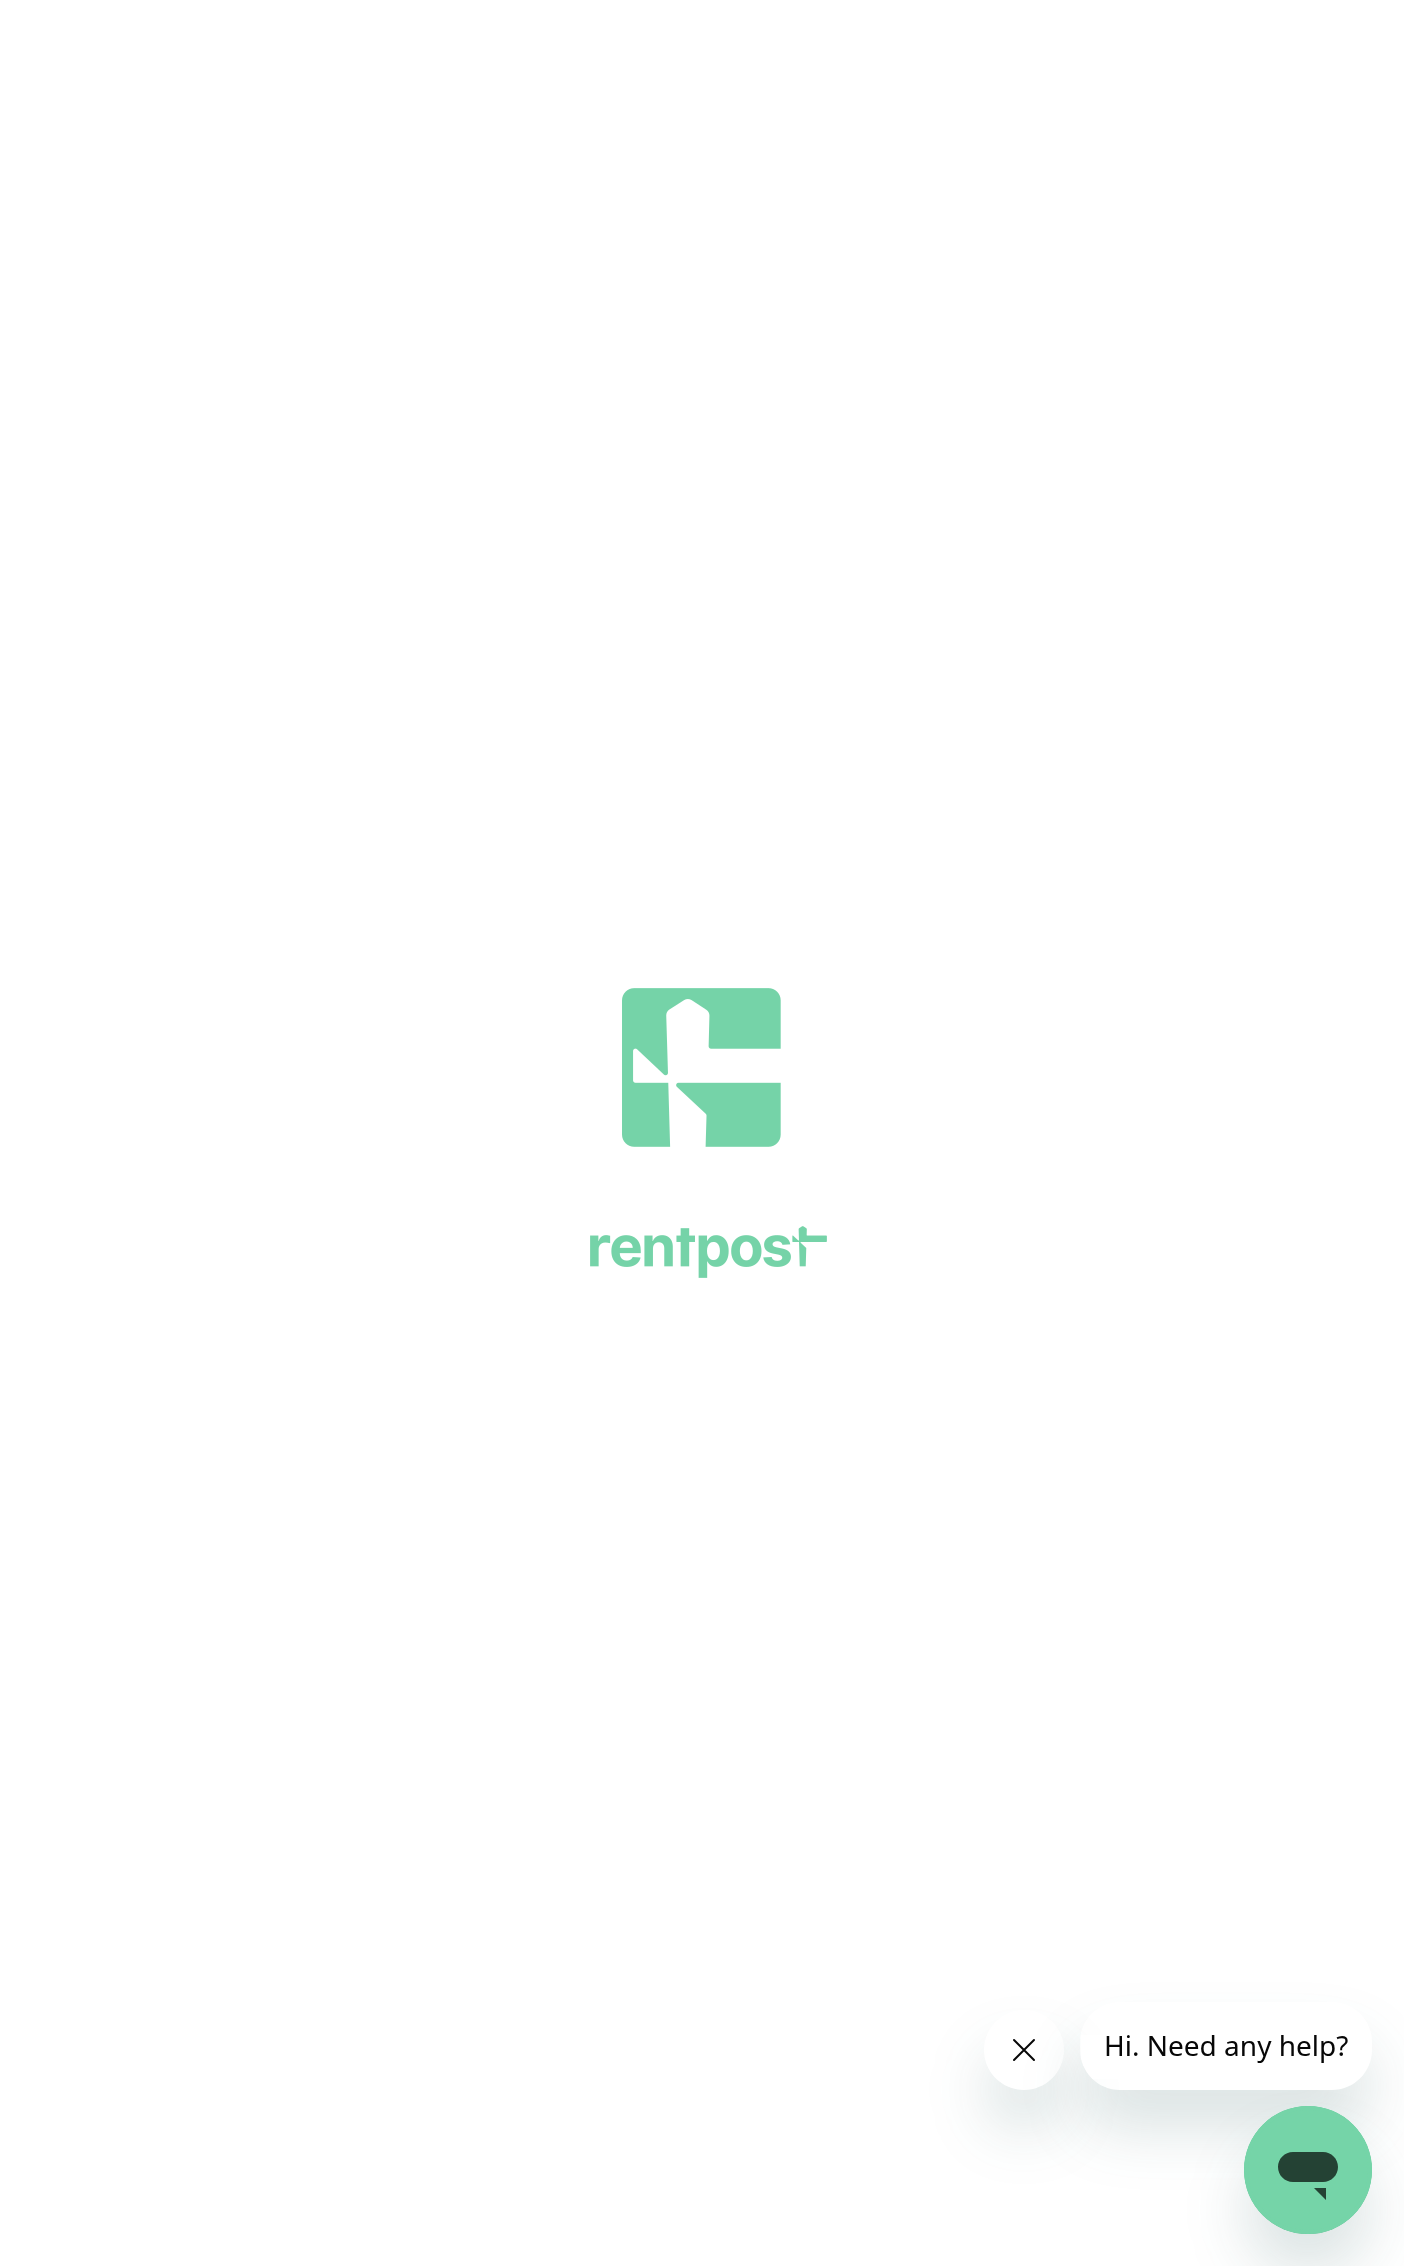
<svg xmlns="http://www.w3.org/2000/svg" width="1404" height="2266">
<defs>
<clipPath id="clip1"><path d="M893 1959h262v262h-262zm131 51c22 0 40 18 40 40c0 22-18 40-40 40c-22 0-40-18-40-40c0-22 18-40 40-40z" clip-rule="evenodd"/></clipPath>
<clipPath id="clip2"><path d="M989 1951h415v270h-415zm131 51h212c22 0 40 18 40 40v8c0 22-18 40-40 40h-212c-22 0-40-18-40-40v-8c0-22 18-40 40-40z" clip-rule="evenodd"/></clipPath>
</defs>
<rect width="100%" height="100%" fill="#fff"/>
<image href="1.png" x="622" y="988" width="159" height="159"/>
<image href="2.png" x="590" y="1226" width="237" height="52"/>
<g clip-path="url(#clip1)">
<rect fill="#17494d26" filter="blur(30px)" x="984" y="2050" width="80" height="80" rx="40"/>
</g>
<image href="4.png" x="1013" y="2039" width="22" height="22"/>
<g clip-path="url(#clip2)">
<rect fill="#17494d26" filter="blur(30px)" x="1080" y="2042" width="292" height="88" rx="40"/>
</g>
<image href="3.png" x="1081" y="2035" width="267" height="44"/>
<rect fill="#17494d26" filter="blur(30px)" x="1244" y="2146" width="128" height="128" rx="64"/>
<image href="5.png" x="1244" y="2106" width="128" height="128"/>
</svg>
